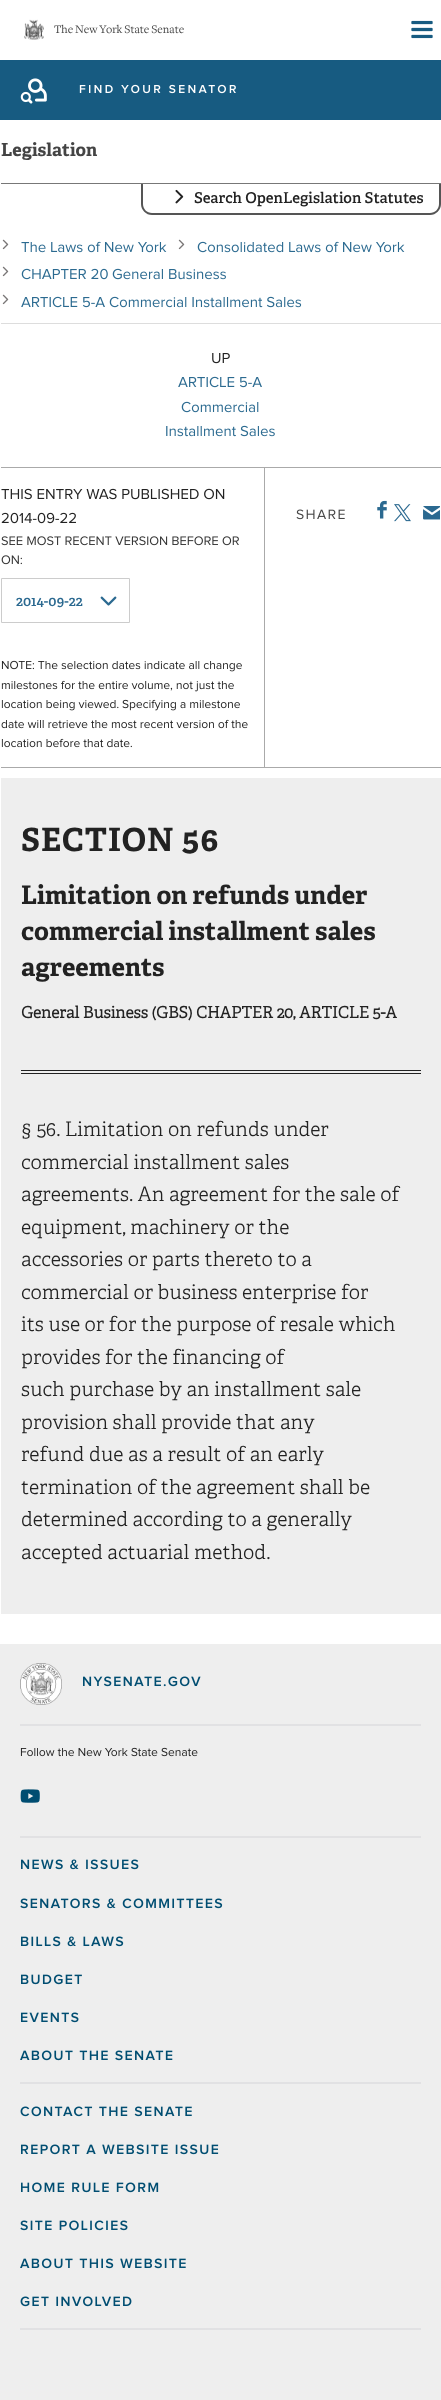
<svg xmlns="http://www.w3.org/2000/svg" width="441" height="2400">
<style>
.a{font:12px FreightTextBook;fill:#444}
.b{font:bold 18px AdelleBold;fill:#444}
.c{font:600 15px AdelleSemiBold;fill:#222}
.d{font:600 14px AdelleSemiBold;fill:#2b6990}
.e{font:bold 32px AdelleBold;letter-spacing:1px;fill:#222}
.f{font:bold 25.6px AdelleBold;fill:#222}
.g{font:bold 16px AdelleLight;fill:#222}
.h{font:300 20px AdelleLight;fill:#222}
</style>
<rect width="100%" height="100%" fill="#fff"/>
<image href="1.png" x="24" y="19" width="20" height="21"/>
<image href="2.png" x="411" y="20" width="22" height="19"/>
<path fill="#175b81" d="M0 60h441v60H0z"/>
<image href="3.png" x="20" y="78" width="27" height="26"/>
<image href="4.png" x="79" y="84" width="157" height="10"/>
<path fill="#777" d="M1 183h440v1H1z"/>
<path fill="#555" fill-rule="evenodd" d="M141 184h300v20c0 6-5 11-11 11h-278c-6 0-11-5-11-11zm2 0h296v20c0 5-4 9-9 9h-278c-5 0-9-4-9-9z"/>
<image href="5.png" x="175" y="189" width="9" height="15"/>
<path fill="#ddd" d="M1 323h440v1H1z"/>
<image href="6.png" x="2" y="239" width="7" height="11"/>
<image href="7.png" x="21" y="241" width="146" height="12"/>
<image href="6.png" x="178" y="239" width="7" height="11"/>
<image href="8.png" x="197" y="241" width="208" height="12"/>
<image href="6.png" x="2" y="266" width="7" height="11"/>
<image href="9.png" x="21" y="268" width="87" height="12"/>
<image href="10.png" x="112" y="268" width="114" height="12"/>
<image href="6.png" x="2" y="294" width="7" height="11"/>
<image href="11.png" x="21" y="296" width="84" height="12"/>
<image href="12.png" x="109" y="296" width="193" height="12"/>
<image href="13.png" x="212" y="353" width="18" height="11"/>
<image href="11.png" x="178" y="376" width="84" height="12"/>
<image href="14.png" x="181" y="401" width="78" height="12"/>
<image href="15.png" x="166" y="425" width="109" height="12"/>
<path fill="#aaa" d="M1 467h440v1H1z"/>
<path fill="#aaa" d="M1 767h440v1H1z"/>
<image href="16.png" x="296" y="509" width="49" height="11"/>
<image href="17.png" x="377" y="500" width="10" height="19"/>
<image href="18.png" x="394" y="504" width="17" height="18"/>
<image href="19.png" x="423" y="506" width="17" height="14"/>
<path fill="#aaa" d="M264 468h1v299H264z"/>
<image href="20.png" x="1" y="488" width="224" height="12"/>
<image href="21.png" x="1" y="512" width="75" height="12"/>
<image href="22.png" x="1" y="536" width="238" height="10"/>
<image href="23.png" x="1" y="555" width="21" height="10"/>
<path fill="none" stroke="#ccc" d="M1.5 578.5h128v44H1.5z"/>
<image href="24.png" x="100" y="596" width="17" height="10"/>
<image href="25.png" x="1" y="660" width="241" height="12"/>
<image href="26.png" x="1" y="680" width="233" height="12"/>
<image href="27.png" x="1" y="700" width="118" height="11"/>
<image href="28.png" x="122" y="699" width="118" height="12"/>
<image href="29.png" x="1" y="719" width="247" height="10"/>
<image href="30.png" x="1" y="738" width="131" height="10"/>
<path fill="#eee" d="M1 778h440v836H1z"/>
<path fill="#222" d="M21 1070h400v1H21z"/>
<path fill="#222" d="M21 1073h400v1H21z"/>
<path fill="#eee" d="M0 1644h441v756H0z"/>
<path fill="#e1e1e3" d="M20 1836h401v2H20z"/>
<image href="31.png" x="20" y="1663" width="42" height="42"/>
<image href="32.png" x="83" y="1676" width="118" height="11"/>
<path fill="#e1e1e3" d="M20 1724h401v2H20z"/>
<image href="33.png" x="20" y="1747" width="178" height="10"/>
<image href="34.png" x="20" y="1789" width="20" height="14"/>
<path fill="#e1e1e3" d="M20 2082h401v2H20z"/>
<image href="35.png" x="21" y="1859" width="118" height="11"/>
<image href="36.png" x="20" y="1898" width="203" height="11"/>
<image href="37.png" x="21" y="1936" width="103" height="11"/>
<image href="38.png" x="21" y="1974" width="61" height="11"/>
<image href="39.png" x="21" y="2012" width="58" height="11"/>
<image href="40.png" x="20" y="2050" width="153" height="11"/>
<path fill="#e1e1e3" d="M20 2328h401v2H20z"/>
<image href="41.png" x="20" y="2106" width="172" height="11"/>
<image href="42.png" x="21" y="2144" width="198" height="11"/>
<image href="43.png" x="21" y="2182" width="138" height="11"/>
<image href="44.png" x="20" y="2220" width="108" height="11"/>
<image href="45.png" x="20" y="2258" width="166" height="11"/>
<image href="46.png" x="20" y="2296" width="112" height="11"/>
<text class="a" x="54" y="33">The New York State Senate</text>
<text class="b" x="1" y="156">Legislation</text>
<text class="c" x="194" y="203">Search OpenLegislation Statutes</text>
<text class="d" x="16" y="606">2014-09-22</text>
<text class="e" x="21" y="851">SECTION 56</text>
<text class="f" x="21" y="904">Limitation on refunds under</text>
<text class="f" x="21" y="940">commercial installment sales</text>
<text class="f" x="21" y="976">agreements</text>
<text class="g" x="21" y="1018">General Business (GBS) CHAPTER 20, ARTICLE 5-A</text>
<text class="h" x="21" y="1136">§ 56. Limitation on refunds under</text>
<text class="h" x="21" y="1169">commercial installment sales</text>
<text class="h" x="21" y="1201">agreements. An agreement for the sale of</text>
<text class="h" x="21" y="1234">equipment, machinery or the</text>
<text class="h" x="21" y="1266">accessories or parts thereto to a</text>
<text class="h" x="21" y="1299">commercial or business enterprise for</text>
<text class="h" x="21" y="1331">its use or for the purpose of resale which</text>
<text class="h" x="21" y="1364">provides for the financing of</text>
<text class="h" x="21" y="1396">such purchase by an installment sale</text>
<text class="h" x="21" y="1429">provision shall provide that any</text>
<text class="h" x="21" y="1461">refund due as a result of an early</text>
<text class="h" x="21" y="1494">termination of the agreement shall be</text>
<text class="h" x="21" y="1526">determined according to a generally</text>
<text class="h" x="21" y="1559">accepted actuarial method.</text>
</svg>
